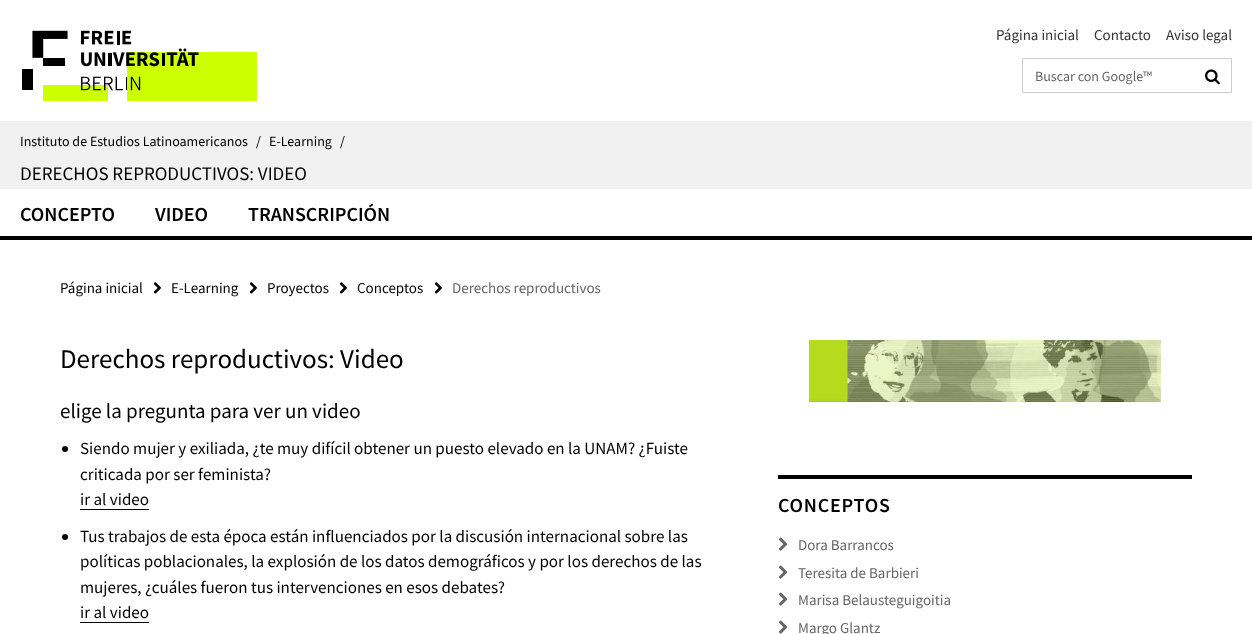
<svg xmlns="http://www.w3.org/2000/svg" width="1252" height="634">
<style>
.a{font:15px Source Sans Pro;fill:#333}
.b{font:14px Source Sans Pro;fill:#666}
.c{font:14px Source Sans Pro;fill:#000}
.d{font:19px Source Sans Pro;fill:#000}
.e{font:600 20px Source Sans Pro;fill:#000}
.f{font:15px Source Sans Pro;fill:#000}
.g{font:15px Source Sans Pro;fill:#666}
.h{font:27px Source Sans Pro;fill:#000}
.i{font:21px Source Sans Pro;fill:#000}
.j{font:17px Source Sans Pro;fill:#000}
.k{font:600 20px Source Sans Pro;letter-spacing:0.75px;fill:#000}
</style>
<rect width="100%" height="100%" fill="#fff"/>
<image href="1.png" x="22" y="30" width="235" height="71"/>
<path fill="none" stroke="#ccc" d="M1022.5 58.5h209v34H1022.5z"/>
<image href="2.png" x="1205" y="69" width="15" height="16"/>
<path fill="#f1f1f1" d="M0 121h1252v68H0z"/>
<path fill="#000" d="M0 236h1252v4H0z"/>
<image href="3.png" x="153" y="282" width="8" height="12"/>
<image href="3.png" x="249" y="282" width="8" height="12"/>
<image href="3.png" x="339" y="282" width="8" height="12"/>
<image href="3.png" x="434" y="282" width="8" height="12"/>
<circle fill="#000" cx="65" cy="449" r="3"/>
<path fill="#000" d="M80 509h69v1H80z"/>
<circle fill="#000" cx="65" cy="537" r="3"/>
<path fill="#000" d="M80 622h69v1H80z"/>
<image href="4.png" x="809" y="340" width="352" height="62"/>
<path fill="#000" d="M778 475h414v4H778z"/>
<image href="5.png" x="779" y="537" width="9" height="14"/>
<image href="5.png" x="779" y="565" width="9" height="14"/>
<image href="5.png" x="779" y="592" width="9" height="14"/>
<image href="5.png" x="779" y="620" width="9" height="14"/>
<text class="a" x="996" y="40">Página inicial</text>
<text class="a" x="1094" y="40">Contacto</text>
<text class="a" x="1166" y="40">Aviso legal</text>
<text class="b" x="1035" y="81">Buscar con Google™</text>
<text class="c" x="20" y="146">Instituto de Estudios Latinoamericanos</text>
<text class="c" x="256" y="146">/</text>
<text class="c" x="269" y="146">E-Learning</text>
<text class="c" x="340" y="146">/</text>
<text class="d" x="20" y="180">DERECHOS REPRODUCTIVOS: VIDEO</text>
<text class="e" x="20" y="221">CONCEPTO</text>
<text class="e" x="155" y="221">VIDEO</text>
<text class="e" x="248" y="221">TRANSCRIPCIÓN</text>
<text class="f" x="60" y="293">Página inicial</text>
<text class="f" x="171" y="293">E-Learning</text>
<text class="f" x="267" y="293">Proyectos</text>
<text class="f" x="357" y="293">Conceptos</text>
<text class="g" x="452" y="293">Derechos reproductivos</text>
<text class="h" x="60" y="368">Derechos reproductivos: Video</text>
<text class="i" x="60" y="418">elige la pregunta para ver un video</text>
<text class="j" x="80" y="454">Siendo mujer y exiliada, ¿te muy difícil obtener un puesto elevado en la UNAM? ¿Fuiste</text>
<text class="j" x="80" y="480">criticada por ser feminista?</text>
<text class="j" x="80" y="505">ir al video</text>
<text class="j" x="80" y="542">Tus trabajos de esta época están influenciados por la discusión internacional sobre las</text>
<text class="j" x="80" y="567">políticas poblacionales, la explosión de los datos demográficos y por los derechos de las</text>
<text class="j" x="80" y="593">mujeres, ¿cuáles fueron tus intervenciones en esos debates?</text>
<text class="j" x="80" y="618">ir al video</text>
<text class="k" x="778" y="512">CONCEPTOS</text>
<text class="g" x="798" y="550">Dora Barrancos</text>
<text class="g" x="798" y="578">Teresita de Barbieri</text>
<text class="g" x="798" y="605">Marisa Belausteguigoitia</text>
<text class="g" x="798" y="633">Margo Glantz</text>
</svg>
